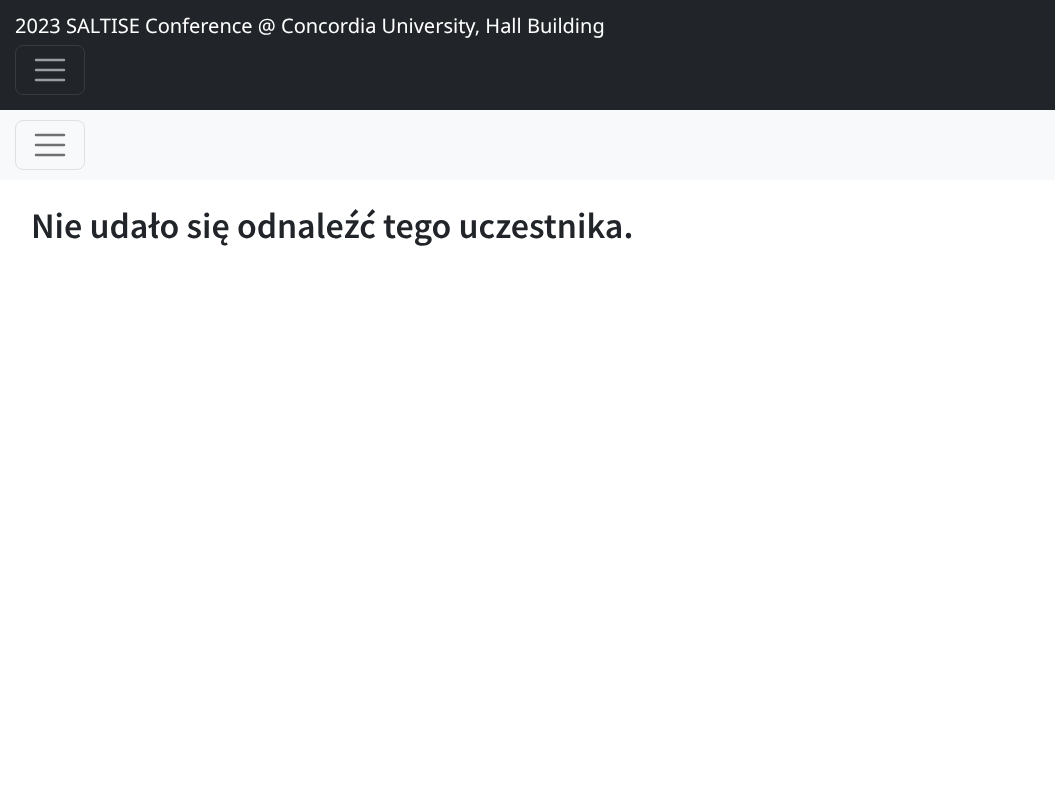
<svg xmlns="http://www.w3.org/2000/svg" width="1055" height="801">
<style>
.a{font:20px Noto Sans;fill:#fff}
.b{font:600 36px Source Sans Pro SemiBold;fill:#212529}
</style>
<rect width="100%" height="100%" fill="#fff"/>
<path fill="#212529" d="M0 0h1055v110H0z"/>
<rect fill="none" stroke="#373b3e" x="15.5" y="45.5" width="69" height="49" rx="7.5"/>
<path fill="none" stroke="#9b9d9f" stroke-width="2.5" stroke-linecap="round" d="M36 60h28m-28 10h28m-28 10h28"/>
<path fill="#f8f9fa" d="M0 110h1055v70H0z"/>
<rect fill="none" stroke="#dfe0e1" x="15.5" y="120.5" width="69" height="49" rx="7.5"/>
<path fill="none" stroke="#707071" stroke-width="2.5" stroke-linecap="round" d="M36 135h28m-28 10h28m-28 10h28"/>
<text class="a" x="15" y="33">2023 SALTISE Conference @ Concordia University, Hall Building</text>
<text class="b" x="31" y="238">Nie udało się odnaleźć tego uczestnika.</text>
</svg>
